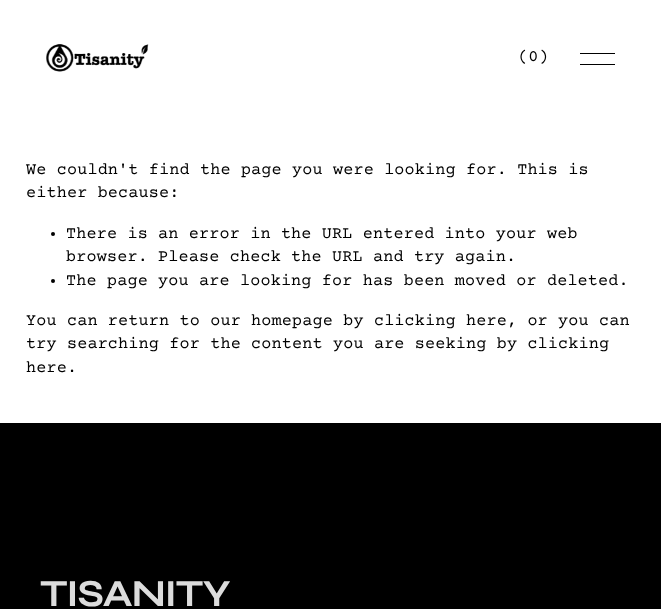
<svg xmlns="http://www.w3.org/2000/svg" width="661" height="609">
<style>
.a{font:16.8px Courier Prime;letter-spacing:0.17px;fill:#000}
.b{font:bold 38.25px Syne;letter-spacing:-1.25px;fill:#dcdcdc}
</style>
<rect width="100%" height="100%" fill="#fff"/>
<image href="1.png" x="46" y="44" width="103" height="28"/>
<path fill="#000" d="M580 53h35v1H580z"/>
<path fill="#000" d="M580 64h35v1H580z"/>
<circle fill="#000" cx="53" cy="234" r="2"/>
<circle fill="#000" cx="53" cy="281" r="2"/>
<path fill="#000" d="M0 423h661v186H0z"/>
<text class="a" x="518" y="61">(0)</text>
<text class="a" x="26" y="174">We couldn't find the page you were looking for. This is</text>
<text class="a" x="26" y="197">either because:</text>
<text class="a" x="66" y="238">There is an error in the URL entered into your web</text>
<text class="a" x="66" y="261">browser. Please check the URL and try again.</text>
<text class="a" x="66" y="285">The page you are looking for has been moved or deleted.</text>
<text class="a" x="26" y="325">You can return to our homepage by clicking here, or you can</text>
<text class="a" x="26" y="348">try searching for the content you are seeking by clicking</text>
<text class="a" x="26" y="372">here.</text>
<text class="b" x="40" y="606">TISANITY</text>
</svg>
